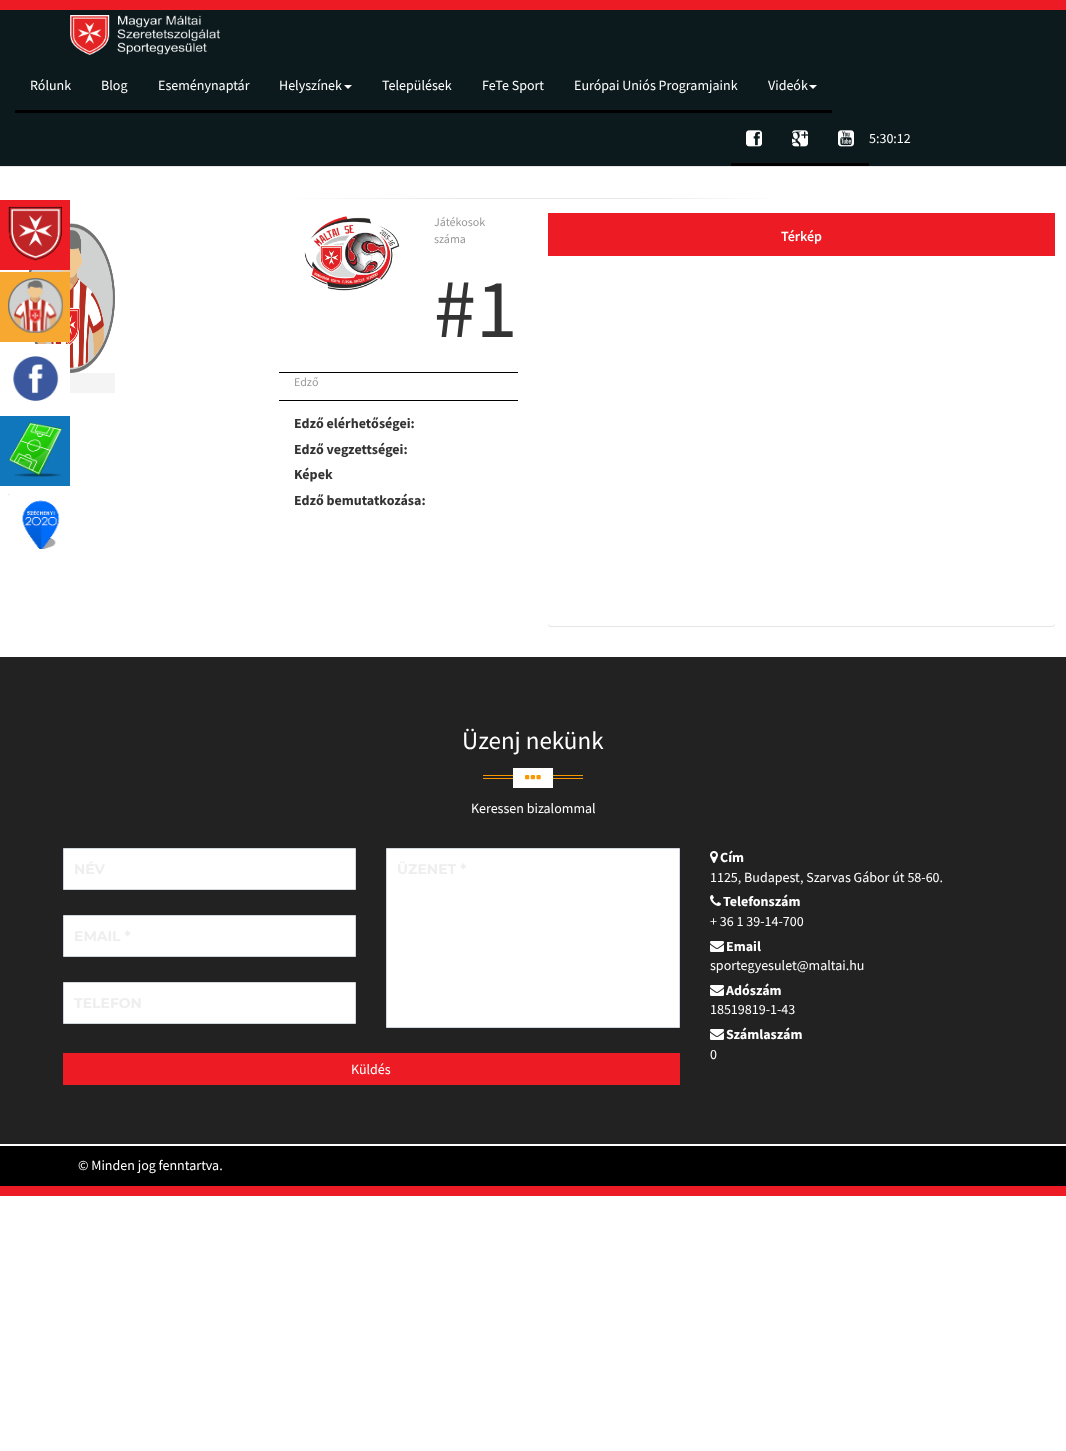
<svg xmlns="http://www.w3.org/2000/svg" width="1066" height="1451">
<style>
.a{font:14px Source Sans Pro;fill:#fff}
.b{font:12px Source Sans Pro;fill:#999}
.c{font:84px Source Sans Pro;fill:#333}
.d{font:bold 14px Source Sans Pro;fill:#333}
.e{font:600 14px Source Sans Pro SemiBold;fill:#fff}
.f{font:25px Source Sans Pro;fill:#fff}
.g{font:bold 14px Montserrat;fill:#eee}
.h{font:bold 14px Source Sans Pro;fill:#fff}
</style>
<defs>
<linearGradient id="g1" gradientUnits="userSpaceOnUse" x1="279" y1="199" x2="787" y2="198"><stop offset="0" stop-color="#fff"/><stop offset="0.35" stop-color="#e8e8e8"/><stop offset="0.7" stop-color="#e8e8e8"/><stop offset="1" stop-color="#fff"/></linearGradient>
</defs>
<rect width="100%" height="100%" fill="#fff"/>
<path fill="#0c1a1e" d="M0 10h1066v156H0z"/>
<path fill="#ed1c24" d="M0 0h1066v10H0z"/>
<path fill="#e7e7e7" d="M0 166h1066v1H0z"/>
<image href="1.png" x="70" y="15" width="150" height="40"/>
<path fill="#000" d="M15 110h817v3H15z"/>
<path fill="#fff" d="M344 85h8l-4 4z"/>
<path fill="#fff" d="M809 85h8l-4 4z"/>
<path fill="#000" d="M731 163h138v3H731z"/>
<image href="2.png" x="746" y="130" width="16" height="17"/>
<image href="3.png" x="792" y="130" width="16" height="17"/>
<image href="4.png" x="838" y="130" width="16" height="17"/>
<image href="6.png" x="29" y="223" width="86" height="150"/>
<path fill="#ed1c24" d="M0 200h70v70H0z"/>
<image href="5.png" x="8" y="206" width="54" height="55"/>
<path fill="url(#g1)" d="M298 198h472v1H298z"/>
<path fill="#f4f4f4" d="M70 373h45v20H70z"/>
<image href="7.png" x="304" y="216" width="96" height="75"/>
<path fill="#000" d="M279 372h239v1H279z"/>
<path fill="#000" d="M279 400h239v1H279z"/>
<rect fill="#0000001a" filter="blur(0.5px)" x="548" y="214" width="507" height="413" rx="3"/>
<path fill="#ed1c24" d="M548 213h507v43H548z"/>
<path fill="#fff" d="M548 256h507v367c0 1.5-1.5 3-3 3h-501c-1.5 0-3-1.5-3-3z"/>
<path fill="#f7a830" d="M0 272h70v70H0z"/>
<image href="8.png" x="8" y="278" width="55" height="55"/>
<path fill="#fff" d="M35 344h35v29H35z"/>
<image href="9.png" x="13" y="356" width="46" height="45"/>
<path fill="#1177bc" d="M0 416h70v70H0z"/>
<image href="10.png" x="8" y="422" width="55" height="55"/>
<image href="11.png" x="8" y="494" width="52" height="55"/>
<path fill="#222" d="M0 657h1066v487H0z"/>
<path fill="#f99700" d="M483 775h100v1H483z"/>
<path fill="#f99700" d="M483 778h100v1H483z"/>
<path fill="#fff" d="M513 768h40v20H513z"/>
<image href="12.png" x="525" y="775" width="16" height="5"/>
<path fill="#fff" stroke="#d2d6de" d="M63.5 848.5h292v41H63.5z"/>
<path fill="#fff" stroke="#d2d6de" d="M63.5 915.5h292v41H63.5z"/>
<path fill="#fff" stroke="#d2d6de" d="M63.5 982.5h292v41H63.5z"/>
<path fill="#fff" stroke="#d2d6de" d="M386.5 848.5h293v179H386.5z"/>
<path fill="#ed1c24" d="M63 1053h617v32H63z"/>
<image href="13.png" x="710" y="851" width="8" height="12"/>
<image href="14.png" x="710" y="895" width="11" height="11"/>
<image href="15.png" x="710" y="941" width="14" height="11"/>
<image href="15.png" x="710" y="985" width="14" height="11"/>
<image href="15.png" x="710" y="1029" width="14" height="11"/>
<path fill="#000" d="M0 1146h1066v40H0z"/>
<path fill="#ed1c24" d="M0 1186h1066v10H0z"/>
<text class="a" x="30" y="90">Rólunk</text>
<text class="a" x="101" y="90">Blog</text>
<text class="a" x="158" y="90">Eseménynaptár</text>
<text class="a" x="279" y="90">Helyszínek</text>
<text class="a" x="382" y="90">Települések</text>
<text class="a" x="482" y="90">FeTe Sport</text>
<text class="a" x="574" y="90">Európai Uniós Programjaink</text>
<text class="a" x="768" y="90">Videók</text>
<text class="a" x="869" y="143">5:30:12</text>
<text class="b" x="434" y="226">Játékosok</text>
<text class="b" x="434" y="243">száma</text>
<text class="c" x="434" y="337">#1</text>
<text class="b" x="294" y="386">Edző</text>
<text class="d" x="294" y="428">Edző elérhetőségei:</text>
<text class="d" x="294" y="454">Edző vegzettségei:</text>
<text class="d" x="294" y="479">Képek</text>
<text class="d" x="294" y="505">Edző bemutatkozása:</text>
<text class="e" x="781" y="241">Térkép</text>
<text class="f" x="462" y="749">Üzenj nekünk</text>
<text class="a" x="471" y="813">Keressen bizalommal</text>
<text class="g" x="74" y="874">NÉV</text>
<text class="g" x="74" y="941">EMAIL *</text>
<text class="g" x="74" y="1008">TELEFON</text>
<text class="g" x="397" y="874">ÜZENET *</text>
<text class="a" x="351" y="1074">Küldés</text>
<text class="h" x="720" y="862">Cím</text>
<text class="a" x="710" y="882">1125, Budapest, Szarvas Gábor út 58-60.</text>
<text class="h" x="723" y="906">Telefonszám</text>
<text class="a" x="710" y="926">+ 36 1 39-14-700</text>
<text class="h" x="726" y="951">Email</text>
<text class="a" x="710" y="970">sportegyesulet@maltai.hu</text>
<text class="h" x="726" y="995">Adószám</text>
<text class="a" x="710" y="1014">18519819-1-43</text>
<text class="h" x="726" y="1039">Számlaszám</text>
<text class="a" x="710" y="1059">0</text>
<text class="a" x="78" y="1170">© Minden jog fenntartva.</text>
</svg>
